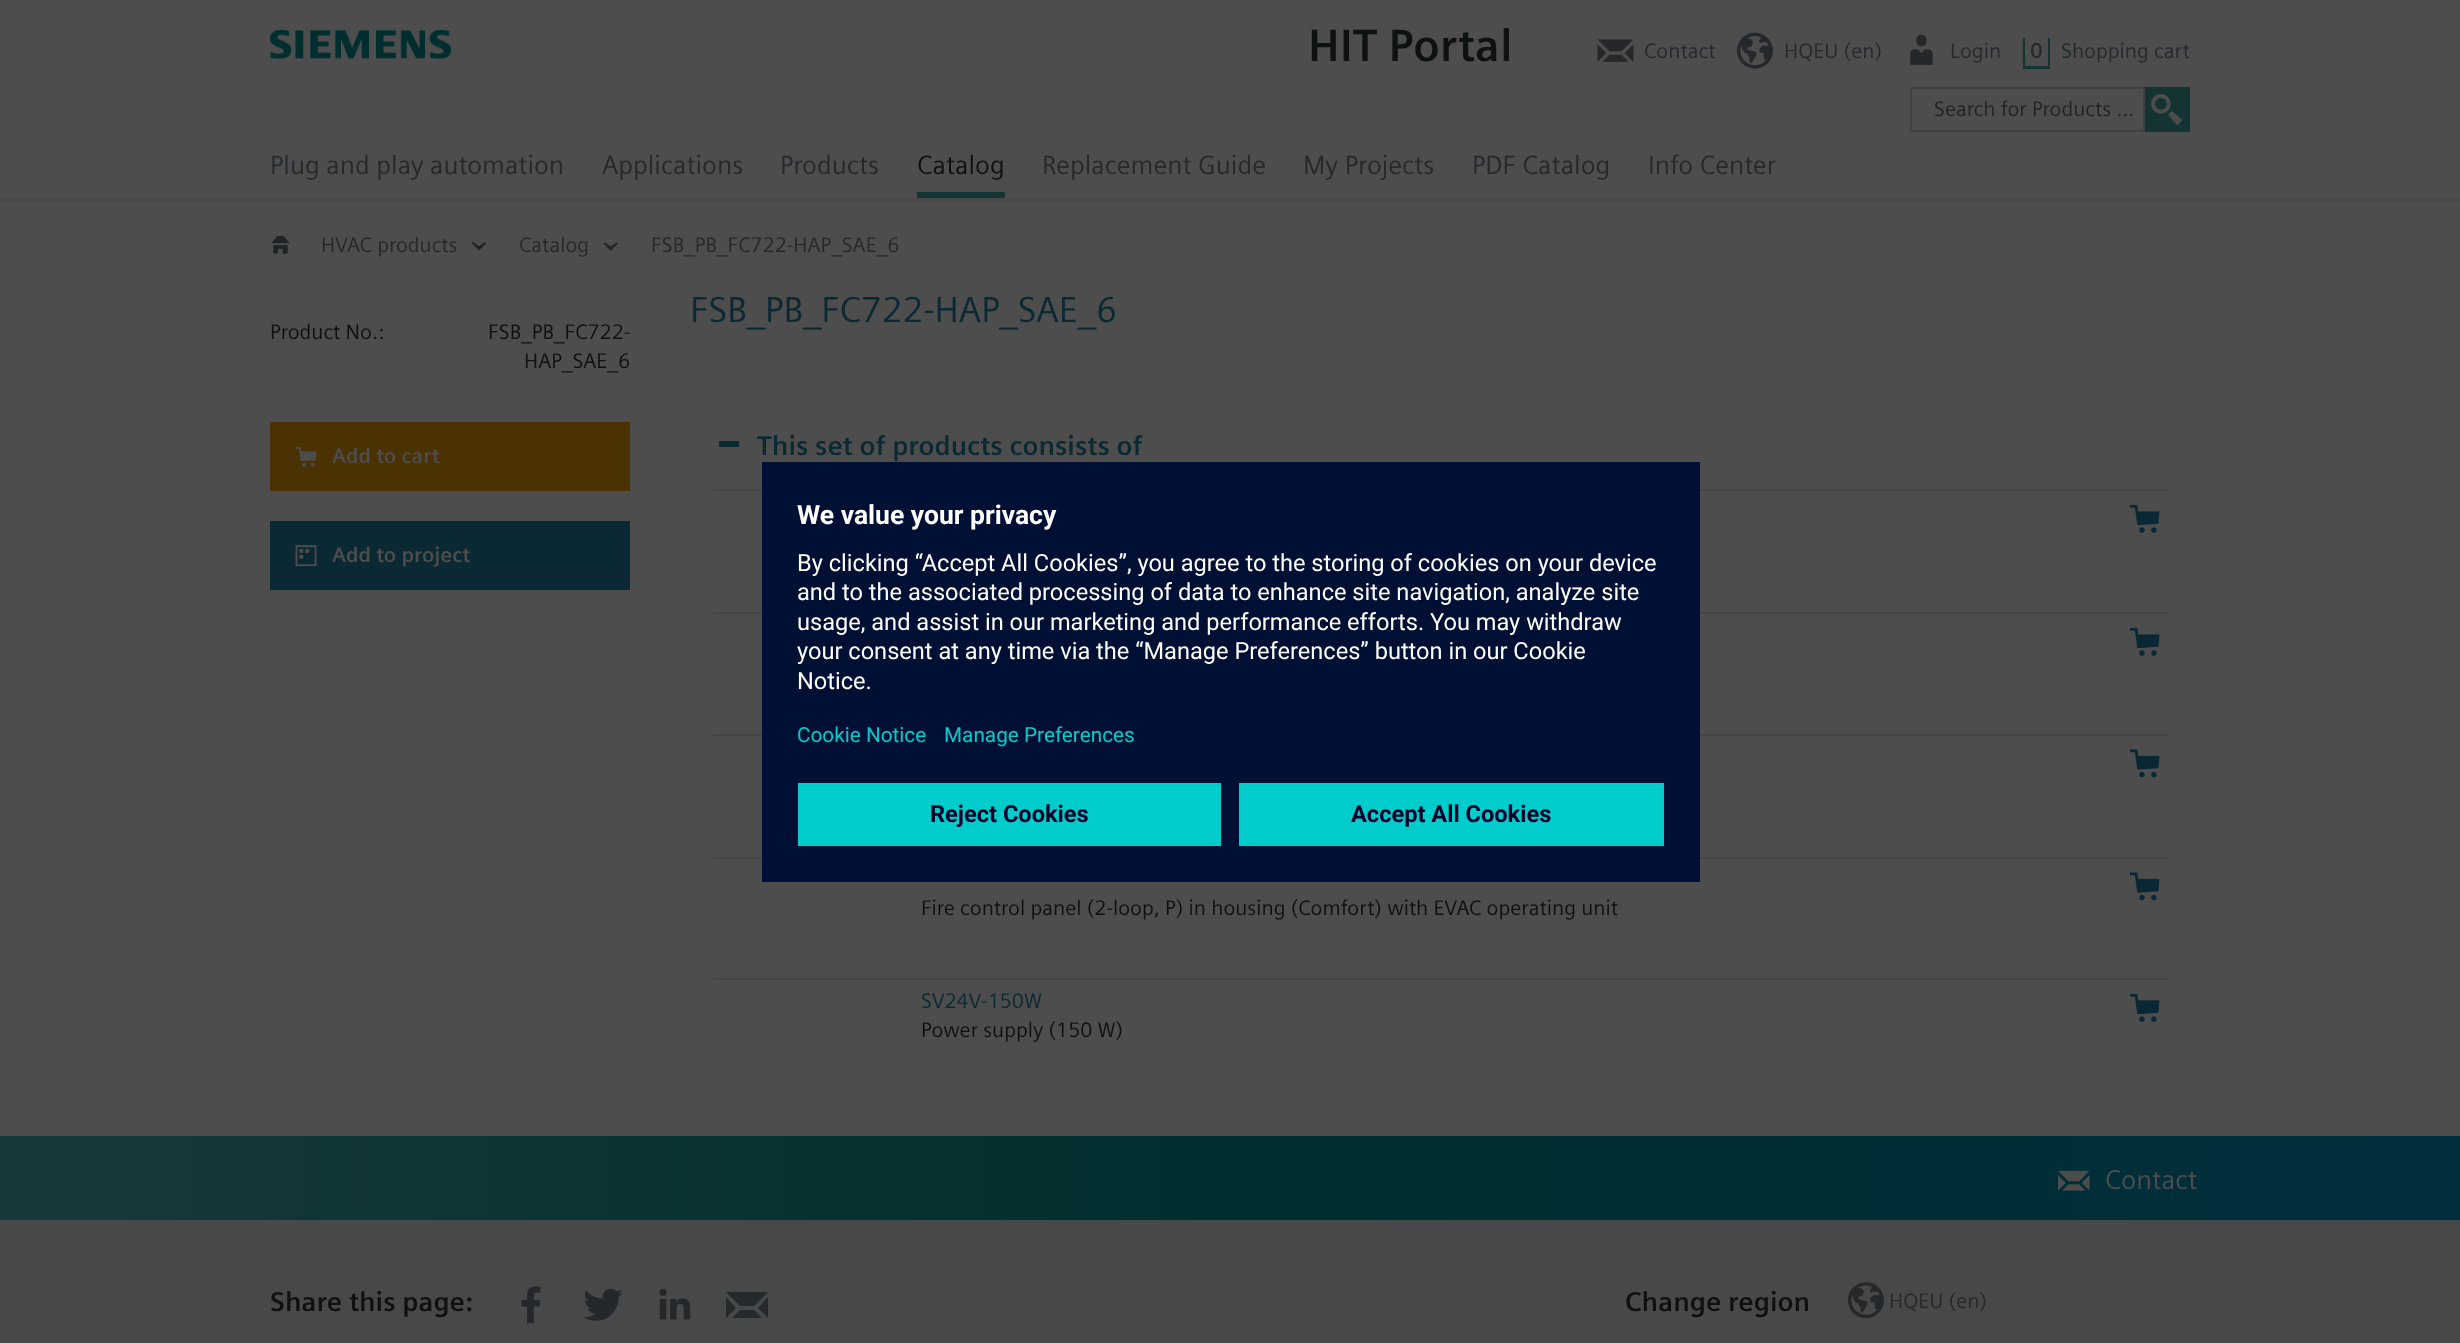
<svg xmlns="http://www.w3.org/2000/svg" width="2460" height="1343">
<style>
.a{font:bold 45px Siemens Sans;fill:#0e1112}
.b{font:21px Siemens Sans;fill:#24292c}
.c{font:bold 21px 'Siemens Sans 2';fill:#24292c}
.d{font:21px Siemens Sans;fill:#232323}
.e{font:26.25px Siemens Sans;fill:#24292c}
.f{font:26.25px Siemens Sans;fill:#0e1112}
.g{font:36.1px Siemens Sans;fill:#0b2933}
.h{font:21px Siemens Sans;fill:#0e1112}
.i{font:bold 21px Siemens Sans;fill:#4d4d4d}
.j{font:bold 27.1px Siemens Sans;fill:#0b2933}
.k{font:21px Siemens Sans;fill:#0b2933}
.l{font:bold 26.5px Roboto;fill:#fff}
.m{font:23.6px Roboto;fill:#fff}
.n{font:20.75px Roboto;fill:#0cc}
.o{font:bold 23.6px Roboto;fill:#000028}
.p{font:27.1px Siemens Sans;fill:#4d4d4d}
.q{font:bold 27.1px Siemens Sans;fill:#0e1112}
</style>
<defs>
<linearGradient id="g1" gradientUnits="userSpaceOnUse" x1="0" y1="1178" x2="2460" y2="1178"><stop offset="0" stop-color="#183939"/><stop offset="0.5" stop-color="#002e2e"/><stop offset="1" stop-color="#002e3d"/></linearGradient>
</defs>
<rect width="100%" height="100%" fill="#4d4d4d"/>
<path fill="#47484a" d="M0 198h2460v3H0z"/>
<image href="1.png" x="270" y="30" width="182" height="29"/>
<image href="2.png" x="1597" y="39" width="37" height="23"/>
<image href="3.png" x="1737" y="32" width="36" height="37"/>
<image href="4.png" x="1910" y="34" width="23" height="31"/>
<path fill="#143333" d="M2048 38h2v31H2048z"/>
<path fill="#143333" d="M2022 66h29v3H2022z"/>
<path fill="#143333" d="M2023 38h2v31H2023z"/>
<path fill="none" stroke="#4d4d4d" stroke-width="2" d="M2022 37h29v33H2022z"/>
<path fill="none" stroke="#3e4144" stroke-width="2" d="M1911 88h233v43H1911z"/>
<path fill="#143333" d="M2145 87h45v45H2145z"/>
<image href="5.png" x="2151" y="94" width="32" height="32"/>
<path fill="#143333" d="M917 192h88v6H917z"/>
<image href="6.png" x="271" y="236" width="19" height="18"/>
<image href="7.png" x="471" y="242" width="16" height="9"/>
<image href="8.png" x="603" y="242" width="15" height="9"/>
<path fill="#4b3203" d="M270 422h360v69H270z"/>
<image href="9.png" x="295" y="446" width="22" height="21"/>
<path fill="#0b2933" d="M270 521h360v69H270z"/>
<image href="10.png" x="295" y="545" width="22" height="22"/>
<path fill="#0b2933" d="M719 441h20v6H719z"/>
<path fill="#434547" d="M713 489h1455v2H713z"/>
<image href="11.png" x="2130" y="504" width="30" height="29"/>
<path fill="#434547" d="M713 612h1455v2H713z"/>
<image href="11.png" x="2130" y="627" width="30" height="29"/>
<path fill="#434547" d="M713 734h1455v2H713z"/>
<image href="12.png" x="2130" y="749" width="30" height="29"/>
<path fill="#434547" d="M713 857h1455v2H713z"/>
<image href="12.png" x="2130" y="872" width="30" height="29"/>
<path fill="#434547" d="M713 978h1455v2H713z"/>
<image href="11.png" x="2130" y="993" width="30" height="29"/>
<path fill="#001034" d="M762 462h938v420H762z"/>
<path fill="#0cc" d="M798 783h423v63H798z"/>
<path fill="#0cc" d="M1239 783h425v63H1239z"/>
<path fill="#47484a" d="M0 1220h2460v123H0z"/>
<path fill="url(#g1)" d="M0 1136h2460v84H0z"/>
<image href="13.png" x="2058" y="1170" width="32" height="21"/>
<image href="14.png" x="521" y="1286" width="20" height="38"/>
<image href="15.png" x="583" y="1288" width="40" height="33"/>
<image href="16.png" x="659" y="1288" width="32" height="32"/>
<path fill="#24292c" d="M754 1306l14-14h-42l14 14zm-28-9v21l10-10zm14 13l-8 8h30l-8-8zm28 8v-21l-10 11z"/>
<image href="17.png" x="1848" y="1282" width="36" height="37"/>
<text class="a" x="1308" y="61">HIT Portal</text>
<text class="b" x="1644" y="58">Contact</text>
<text class="b" x="1784" y="58">HQEU (en)</text>
<text class="b" x="1950" y="58">Login</text>
<text class="c" x="2030" y="58">0</text>
<text class="b" x="2061" y="58">Shopping cart</text>
<text class="d" x="1934" y="116">Search for Products …</text>
<text class="e" x="270" y="174">Plug and play automation</text>
<text class="e" x="602" y="174">Applications</text>
<text class="e" x="780" y="174">Products</text>
<text class="f" x="917" y="174">Catalog</text>
<text class="e" x="1042" y="174">Replacement Guide</text>
<text class="e" x="1303" y="174">My Projects</text>
<text class="e" x="1472" y="174">PDF Catalog</text>
<text class="e" x="1648" y="174">Info Center</text>
<text class="b" x="321" y="252">HVAC products</text>
<text class="b" x="519" y="252">Catalog</text>
<text class="b" x="651" y="252">FSB_PB_FC722-HAP_SAE_6</text>
<text class="g" x="690" y="322">FSB_PB_FC722-HAP_SAE_6</text>
<text class="h" x="270" y="339">Product No.:</text>
<text class="h" x="488" y="339">FSB_PB_FC722-</text>
<text class="h" x="524" y="368">HAP_SAE_6</text>
<text class="i" x="332" y="463">Add to cart</text>
<text class="i" x="332" y="562">Add to project</text>
<text class="j" x="757" y="455">This set of products consists of</text>
<text class="h" x="921" y="915">Fire control panel (2-loop, P) in housing (Comfort) with EVAC operating unit</text>
<text class="k" x="921" y="1008">SV24V-150W</text>
<text class="h" x="921" y="1037">Power supply (150 W)</text>
<text class="l" x="797" y="524">We value your privacy</text>
<text class="m" x="797" y="571">By clicking “Accept All Cookies”, you agree to the storing of cookies on your device</text>
<text class="m" x="797" y="600">and to the associated processing of data to enhance site navigation, analyze site</text>
<text class="m" x="797" y="630">usage, and assist in our marketing and performance efforts. You may withdraw</text>
<text class="m" x="797" y="659">your consent at any time via the “Manage Preferences” button in our Cookie</text>
<text class="m" x="797" y="689">Notice.</text>
<text class="n" x="797" y="742">Cookie Notice</text>
<text class="n" x="944" y="742">Manage Preferences</text>
<text class="o" x="930" y="822">Reject Cookies</text>
<text class="o" x="1351" y="822">Accept All Cookies</text>
<text class="p" x="2105" y="1189">Contact</text>
<text class="q" x="270" y="1311">Share this page:</text>
<text class="q" x="1625" y="1311">Change region</text>
<text class="b" x="1889" y="1308">HQEU (en)</text>
</svg>
